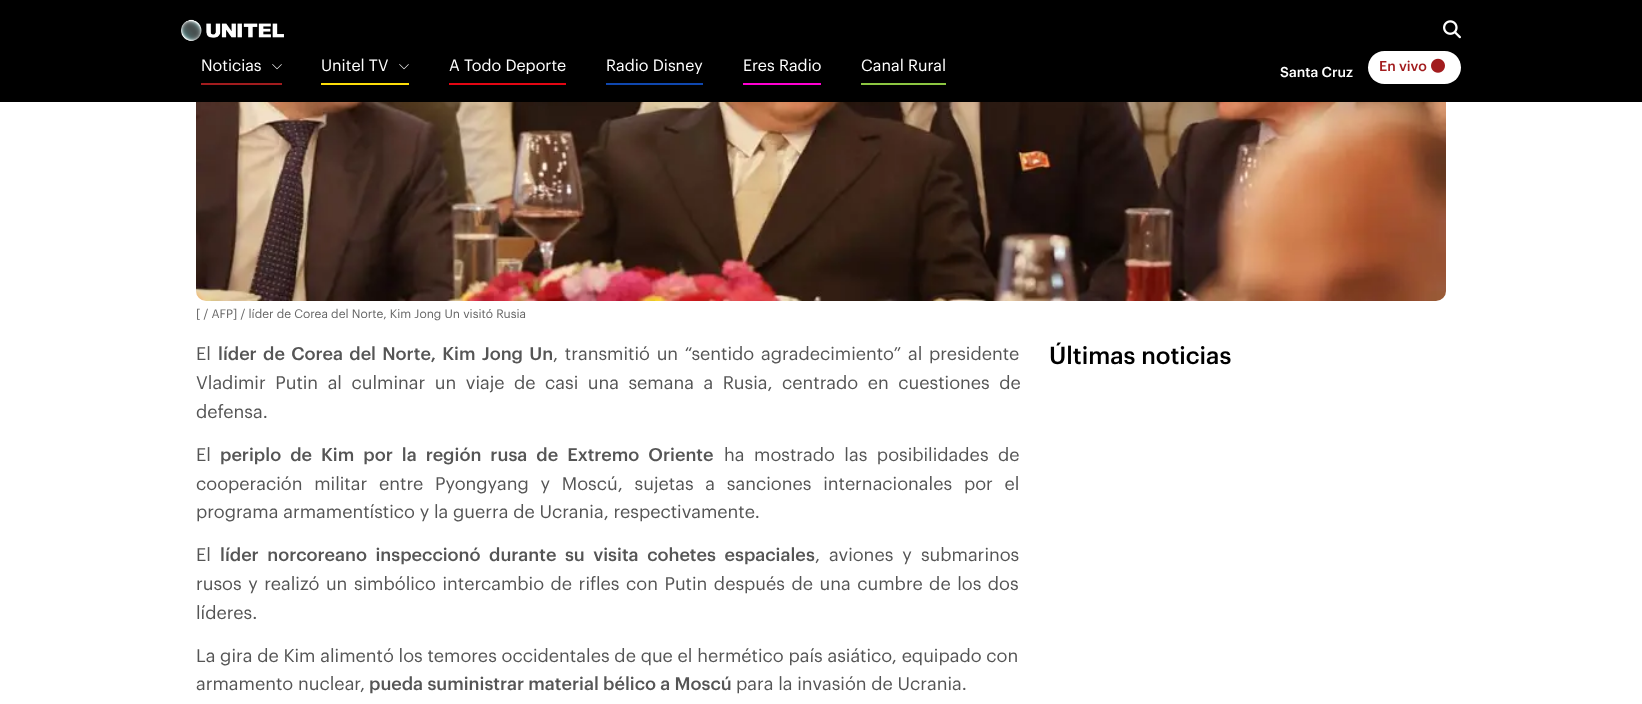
<svg xmlns="http://www.w3.org/2000/svg" width="1642" height="704">
<style>
.a{font:16px Graphik;fill:#fff}
.b{font:500 14px Graphik;fill:#fff}
.c{font:500 14px Graphik;fill:#a21c1e}
.d{font:12px Graphik;fill:#666}
.e{font:18px Graphik;fill:#555}
.f{font:500 18px Graphik;fill:#555}
.g{font:500 24px Graphik;fill:#000}
</style>
<rect width="100%" height="100%" fill="#fff"/>
<path fill="#000" d="M0 0h1642v102H0z"/>
<image href="1.png" x="181" y="19" width="103" height="22"/>
<image href="2.png" x="1443" y="20" width="18" height="19"/>
<path fill="#a21c1e" d="M201 83h81v2H201z"/>
<image href="3.png" x="272" y="64" width="10" height="6"/>
<path fill="#fcdd09" d="M321 83h88v2H321z"/>
<image href="3.png" x="399" y="64" width="10" height="6"/>
<path fill="#e30613" d="M449 83h117v2H449z"/>
<path fill="#0f47af" d="M606 83h97v2H606z"/>
<path fill="#ff00d2" d="M743 83h78v2H743z"/>
<path fill="#8cc641" d="M861 83h85v2H861z"/>
<rect fill="#fff" x="1368" y="51" width="93" height="33" rx="16.5"/>
<image href="4.png" x="1431" y="58" width="14" height="15"/>
<image href="5.png" x="196" y="102" width="1250" height="199"/>
<text class="a" x="201" y="71">Noticias</text>
<text class="a" x="321" y="71">Unitel TV</text>
<text class="a" x="449" y="71">A Todo Deporte</text>
<text class="a" x="606" y="71">Radio Disney</text>
<text class="a" x="743" y="71">Eres Radio</text>
<text class="a" x="861" y="71">Canal Rural</text>
<text class="b" x="1280" y="77">Santa Cruz</text>
<text class="c" x="1379" y="71">En vivo</text>
<text class="d" x="196" y="318">[ / AFP] / líder de Corea del Norte, Kim Jong Un visitó Rusia</text>
<text class="e" x="196" y="360">El</text>
<text class="f" x="218" y="360" word-spacing="2">líder de Corea del Norte, Kim Jong Un</text>
<text class="e" x="553" y="360" word-spacing="2">, transmitió un “sentido agradecimiento” al presidente</text>
<text class="e" x="196" y="389" word-spacing="4.75">Vladimir Putin al culminar un viaje de casi una semana a Rusia, centrado en cuestiones de</text>
<text class="e" x="196" y="418">defensa.</text>
<text class="e" x="196" y="461">El</text>
<text class="f" x="220" y="461" word-spacing="4.75">periplo de Kim por la región rusa de Extremo Oriente</text>
<text class="e" x="724" y="461" word-spacing="4.75">ha mostrado las posibilidades de</text>
<text class="e" x="196" y="490" word-spacing="7">cooperación militar entre Pyongyang y Moscú, sujetas a sanciones internacionales por el</text>
<text class="e" x="196" y="518">programa armamentístico y la guerra de Ucrania, respectivamente.</text>
<text class="e" x="196" y="561">El</text>
<text class="f" x="220" y="561" word-spacing="4.25">líder norcoreano inspeccionó durante su visita cohetes espaciales</text>
<text class="e" x="815" y="561" word-spacing="4.25">, aviones y submarinos</text>
<text class="e" x="196" y="590" word-spacing="1.75">rusos y realizó un simbólico intercambio de rifles con Putin después de una cumbre de los dos</text>
<text class="e" x="196" y="619">líderes.</text>
<text class="e" x="196" y="662">La gira de Kim alimentó los temores occidentales de que el hermético país asiático, equipado con</text>
<text class="e" x="196" y="690">armamento nuclear,</text>
<text class="f" x="369" y="690">pueda suministrar material bélico a Moscú</text>
<text class="e" x="736" y="690">para la invasión de Ucrania.</text>
<text class="g" x="1049" y="364">Últimas noticias</text>
</svg>
